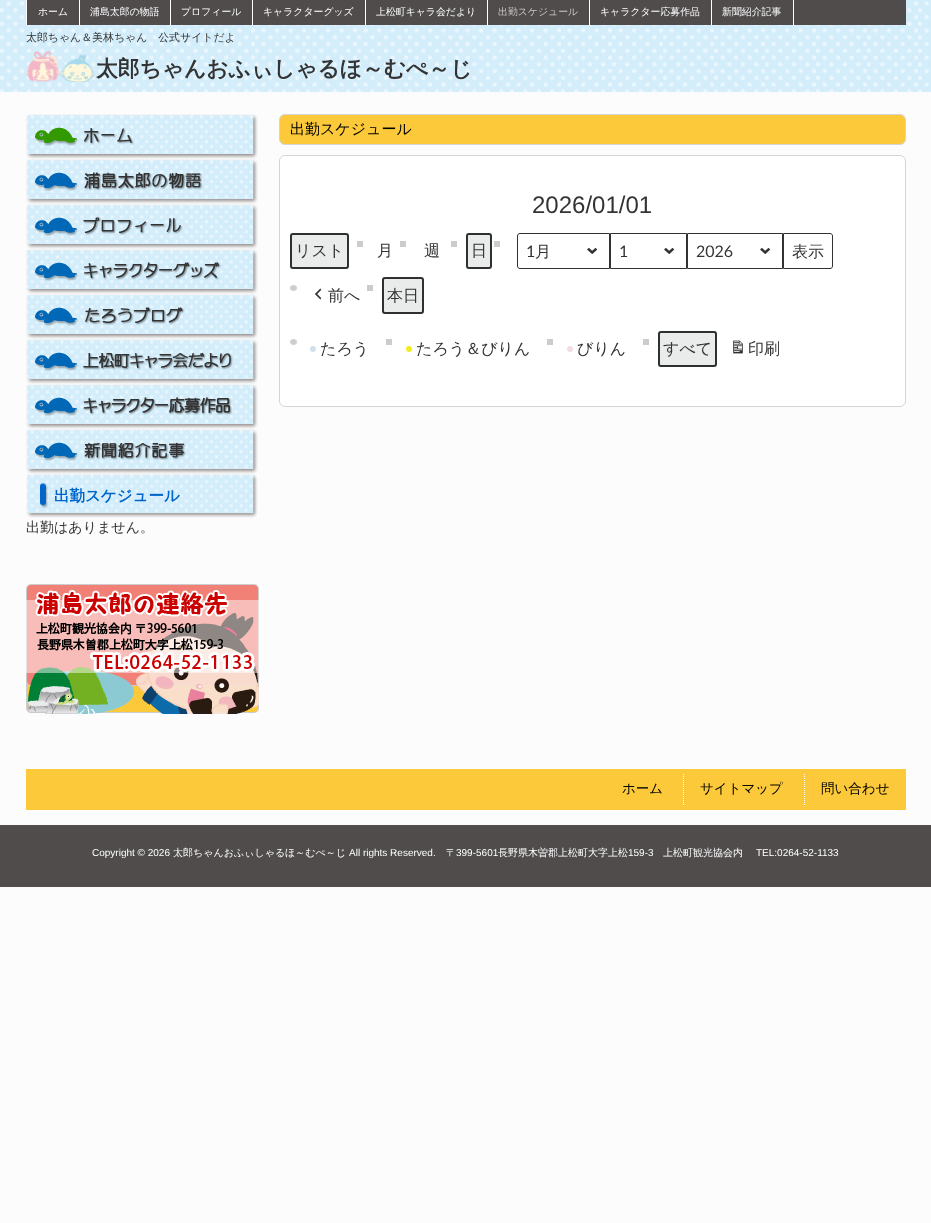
<svg xmlns="http://www.w3.org/2000/svg" width="931" height="1223">
<style>
.a{font:500 9.9px WenQuanYi Zen Hei;fill:#fff}
.b{font:500 9.9px WenQuanYi Zen Hei;fill:#cbc6c6}
.c{font:500 10.9px WenQuanYi Zen Hei;fill:#333}
.d{font:bold 21.75px WenQuanYi Zen Hei;fill:#333}
.e{font:500 15px WenQuanYi Zen Hei;fill:#000}
.f{font:24px Liberation Sans;fill:#333}
.g{font:500 16px WenQuanYi Zen Hei;fill:#333}
.h{font:16px Lato;fill:#333}
.i{font:bold 15.5px WenQuanYi Zen Hei;fill:#06c}
.j{font:500 14px WenQuanYi Zen Hei;fill:#333}
.k{font:500 13.5px WenQuanYi Zen Hei;fill:#000}
.l{font:10px Liberation Sans;fill:#fff}
.m{font:500 10px WenQuanYi Zen Hei;fill:#fff}
</style>
<rect width="100%" height="100%" fill="#fcfcfc"/>
<image href="1.png" x="0" y="0" width="931" height="92"/>
<path fill="#504c4c" d="M27 0h879v25H27z"/>
<path fill="#fff" d="M26 0h1v25H26z"/>
<path fill="#fff" d="M79 0h1v25H79z"/>
<path fill="#fff" d="M170 0h1v25H170z"/>
<path fill="#fff" d="M252 0h1v25H252z"/>
<path fill="#fff" d="M365 0h1v25H365z"/>
<path fill="#fff" d="M487 0h1v25H487z"/>
<path fill="#fff" d="M589 0h1v25H589z"/>
<path fill="#fff" d="M711 0h1v25H711z"/>
<path fill="#fff" d="M793 0h1v25H793z"/>
<image href="2.png" x="26" y="51" width="69" height="31"/>
<rect fill="#fcc93a" stroke="#d5d5d5" x="279.5" y="114.5" width="626" height="30" rx="5.5"/>
<rect fill="#fff" stroke="#d5d5d5" x="279.5" y="155.5" width="626" height="251" rx="5.5"/>
<rect fill="#eaebeb" x="290" y="233" width="59" height="36" rx="3"/>
<rect fill="none" stroke="#2f3030" stroke-width="2" x="291" y="234" width="57" height="34" rx="2"/>
<path fill="#ccc" d="M357 241h6v6H357z"/>
<path fill="#ccc" d="M400 241h6v6H400z"/>
<path fill="#ccc" d="M451 241h6v6H451z"/>
<rect fill="#eaebeb" x="466" y="233" width="26" height="36" rx="3"/>
<rect fill="none" stroke="#2f3030" stroke-width="2" x="467" y="234" width="24" height="34" rx="2"/>
<path fill="#ccc" d="M494 241h6v6H494z"/>
<image href="3.png" x="587" y="247" width="10" height="7"/>
<path fill="none" stroke="#313233" d="M520 233.5h89.5v35h-89.5c-1.5 0-2.5-1-2.5-2.5v-30c0-1.5 1-2.5 2.5-2.5z"/>
<image href="3.png" x="664" y="247" width="10" height="7"/>
<path fill="none" stroke="#313233" d="M610.5 233.5h76v35H610.5z"/>
<image href="3.png" x="760" y="247" width="10" height="7"/>
<path fill="none" stroke="#313233" d="M687.5 233.5h95v35H687.5z"/>
<path fill="none" stroke="#313233" d="M783.5 233.5h46.5c1.5 0 2.5 1 2.5 2.5v30c0 1.5-1 2.5-2.5 2.5h-46.5z"/>
<image href="4.png" x="290" y="285" width="7" height="6"/>
<image href="5.png" x="315" y="288" width="7" height="12"/>
<path fill="#ccc" d="M367 285h6v6H367z"/>
<rect fill="#eaebeb" x="382" y="277" width="42" height="37" rx="3"/>
<rect fill="none" stroke="#2f3030" stroke-width="2" x="383" y="278" width="40" height="35" rx="2"/>
<image href="4.png" x="290" y="339" width="7" height="6"/>
<circle fill="#d0e1ed" cx="313" cy="349" r="3"/>
<path fill="#ccc" d="M386 339h6v6H386z"/>
<circle fill="#ee2" cx="409" cy="349" r="3"/>
<path fill="#ccc" d="M547 339h6v6H547z"/>
<circle fill="#f2dce3" cx="570" cy="349" r="3"/>
<path fill="#ccc" d="M643 339h6v6H643z"/>
<rect fill="#eaebeb" x="658" y="331" width="59" height="36" rx="3"/>
<rect fill="none" stroke="#2f3030" stroke-width="2" x="659" y="332" width="57" height="34" rx="2"/>
<image href="6.png" x="733" y="340" width="10" height="14"/>
<image href="7.png" x="26" y="114" width="232" height="45"/>
<image href="8.png" x="26" y="159" width="232" height="45"/>
<image href="9.png" x="26" y="204" width="232" height="45"/>
<image href="10.png" x="26" y="249" width="232" height="45"/>
<image href="11.png" x="26" y="294" width="232" height="45"/>
<image href="12.png" x="26" y="339" width="232" height="45"/>
<image href="13.png" x="26" y="384" width="232" height="45"/>
<image href="14.png" x="26" y="429" width="232" height="45"/>
<path fill="#fff" d="M26 474h233v44H26z"/>
<image href="15.png" x="26" y="474" width="232" height="44"/>
<image href="16.png" x="26" y="584" width="233" height="130"/>
<path fill="#fcc93a" d="M26 769h880v41H26z"/>
<path fill="none" stroke="#fff" stroke-dasharray="1 1" d="M683.5 774v31"/>
<path fill="none" stroke="#fff" stroke-dasharray="1 1" d="M804.5 774v31"/>
<path fill="#504c4c" d="M0 825h931v62H0z"/>
<text class="a" x="38" y="15">ホーム</text>
<text class="a" x="90" y="15">浦島太郎の物語</text>
<text class="a" x="181" y="15">プロフィール</text>
<text class="a" x="263" y="15">キャラクターグッズ</text>
<text class="a" x="376" y="15">上松町キャラ会だより</text>
<text class="b" x="498" y="15">出勤スケジュール</text>
<text class="a" x="600" y="15">キャラクター応募作品</text>
<text class="a" x="722" y="15">新聞紹介記事</text>
<text class="c" x="26" y="41">太郎ちゃん＆美林ちゃん　公式サイトだよ</text>
<text class="d" x="96" y="76">太郎ちゃんおふぃしゃるほ～むぺ～じ</text>
<text class="e" x="290" y="134">出勤スケジュール</text>
<text class="f" x="532" y="213">2026/01/01</text>
<text class="g" x="295" y="256">リスト</text>
<text class="g" x="377" y="256">月</text>
<text class="g" x="424" y="256">週</text>
<text class="g" x="471" y="256">日</text>
<text class="h" x="526" y="257">1</text>
<text class="g" x="535" y="257">月</text>
<text class="h" x="619" y="257">1</text>
<text class="h" x="696" y="257">2026</text>
<text class="g" x="792" y="257">表示</text>
<text class="g" x="328" y="301">前へ</text>
<text class="g" x="387" y="301">本日</text>
<text class="g" x="320" y="354">たろう</text>
<text class="g" x="416" y="354">たろう＆びりん</text>
<text class="g" x="577" y="354">びりん</text>
<text class="g" x="663" y="354">すべて</text>
<text class="g" x="748" y="354">印刷</text>
<text class="i" x="54" y="501">出勤スケジュール</text>
<text class="j" x="26" y="532">出勤はありません。</text>
<text class="k" x="622" y="793">ホーム</text>
<text class="k" x="700" y="793">サイトマップ</text>
<text class="k" x="821" y="793">問い合わせ</text>
<text class="l" x="92" y="856">Copyright © 2026</text>
<text class="m" x="173" y="856">太郎ちゃんおふぃしゃるほ～むぺ～じ</text>
<text class="l" x="349" y="856">All rights Reserved.</text>
<text class="m" x="446" y="856">〒</text>
<text class="l" x="456" y="856">399-5601</text>
<text class="m" x="498" y="856">長野県木曽郡上松町大字上松</text>
<text class="l" x="628" y="856">159-3</text>
<text class="m" x="663" y="856">上松町観光協会内</text>
<text class="l" x="756" y="856">TEL:0264-52-1133</text>
</svg>
